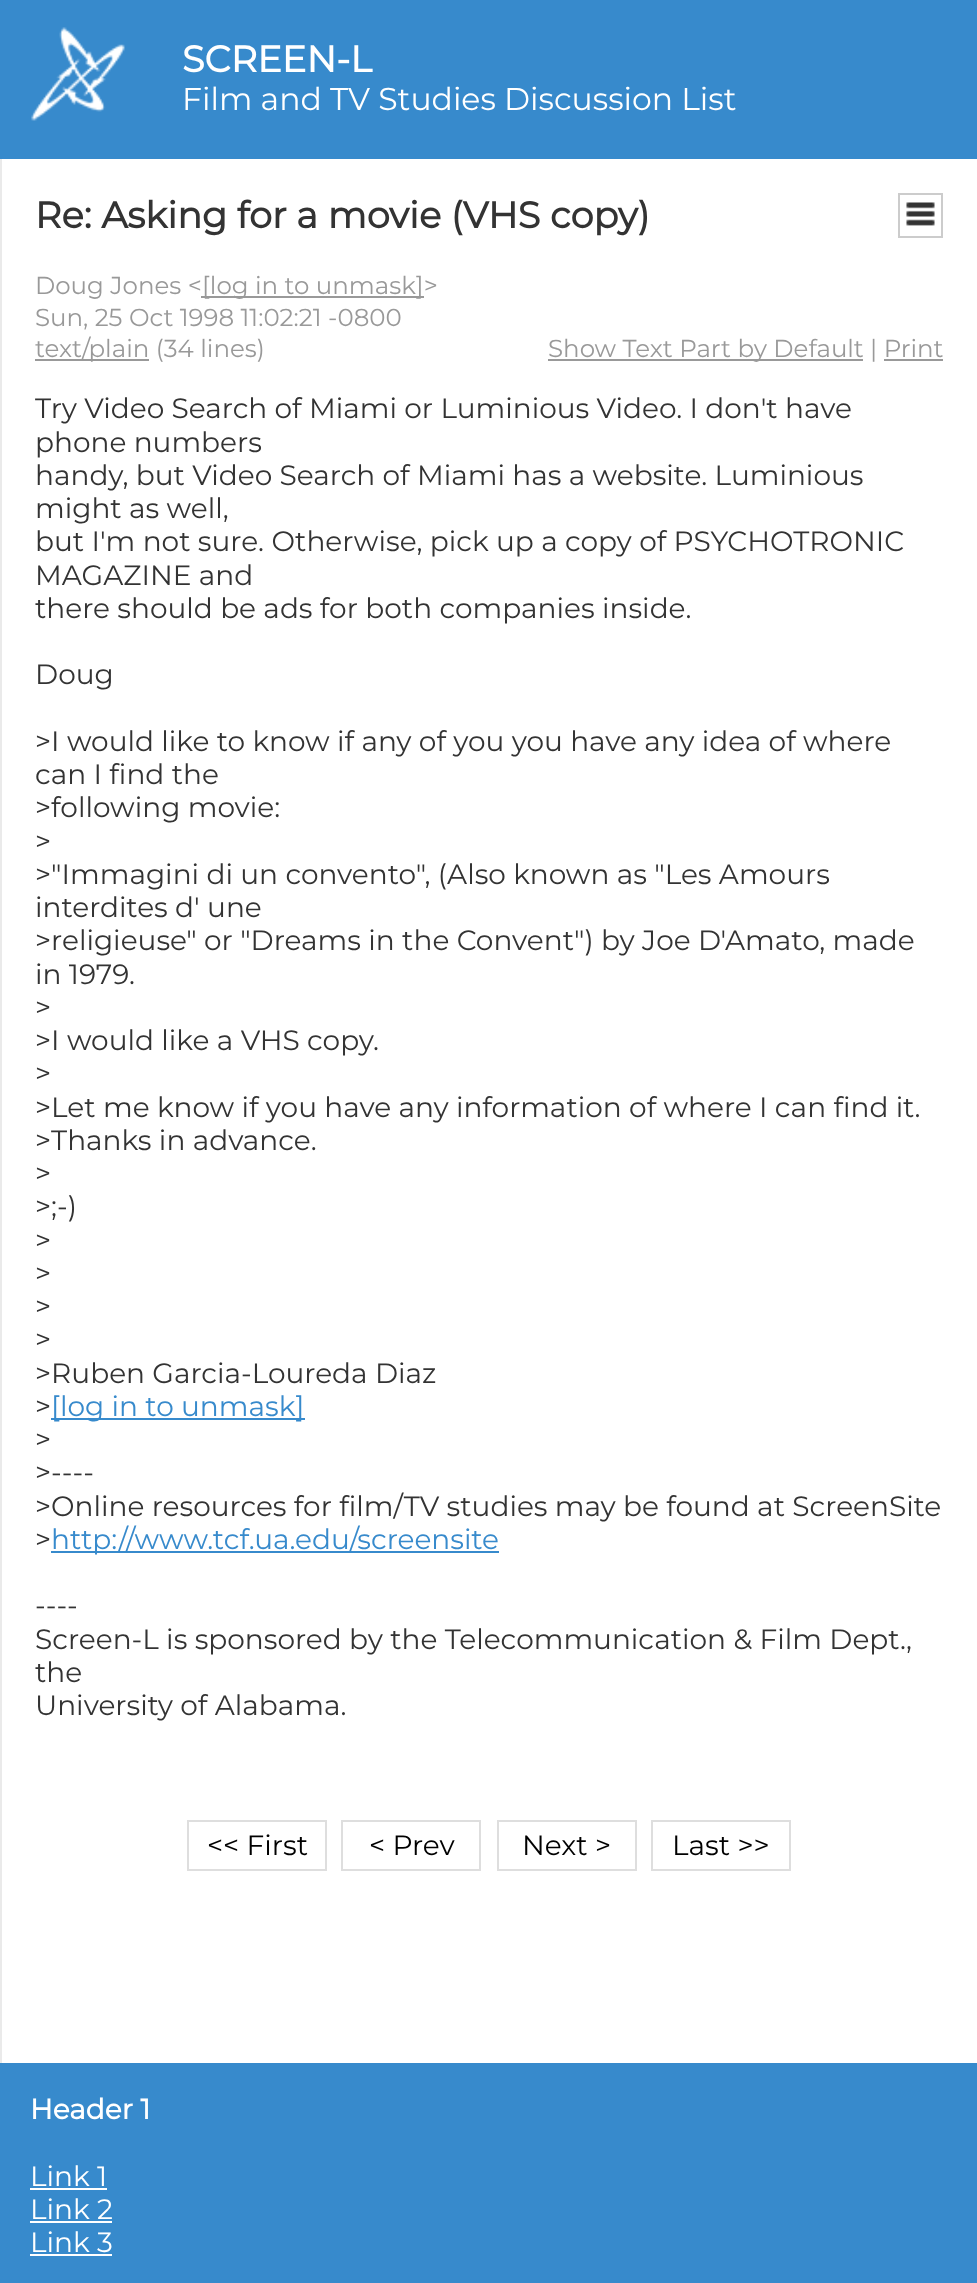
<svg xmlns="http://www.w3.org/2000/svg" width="977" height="2283">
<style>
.a{font:bold 36.75px Montserrat;fill:#fff}
.b{font:100 31.5px Montserrat;fill:#fff}
.c{font:bold 36.75px Montserrat;fill:#333}
.d{font:100 24.5px Montserrat;fill:#999}
.e{font:100 28px Montserrat;fill:#333}
.f{font:100 28px Montserrat;fill:#378acc}
.g{font:100 28px Montserrat;fill:#000}
.h{font:bold 28px Montserrat;fill:#fff}
.i{font:100 28px Montserrat;fill:#fff}
</style>
<rect width="100%" height="100%" fill="#378acc"/>
<image href="1.png" x="31" y="27" width="94" height="94"/>
<path fill="#fff" d="M2 159h975v1904H2z"/>
<path fill="#eaeaea" d="M0 159h2v1904H0z"/>
<path fill="none" stroke="#ccc" stroke-width="2" d="M899 194h43v43H899z"/>
<image href="2.png" x="906" y="202" width="29" height="24"/>
<path fill="#999" d="M201 296h223v2H201z"/>
<path fill="#999" d="M35 359h114v2H35z"/>
<path fill="#999" d="M548 359h315v2H548z"/>
<path fill="#999" d="M884 359h59v2H884z"/>
<path fill="#378acc" d="M51 1418h254v2H51z"/>
<path fill="#378acc" d="M51 1551h448v2H51z"/>
<path fill="none" stroke="#dedede" stroke-width="2" d="M188 1821h138v49H188z"/>
<path fill="none" stroke="#dedede" stroke-width="2" d="M342 1821h138v49H342z"/>
<path fill="none" stroke="#dedede" stroke-width="2" d="M498 1821h138v49H498z"/>
<path fill="none" stroke="#dedede" stroke-width="2" d="M652 1821h138v49H652z"/>
<path fill="#fff" d="M30 2188h77v2H30z"/>
<path fill="#fff" d="M30 2221h82v2H30z"/>
<path fill="#fff" d="M30 2254h82v2H30z"/>
<text class="a" x="182" y="72">SCREEN-L</text>
<text class="b" x="182" y="110">Film and TV Studies Discussion List</text>
<text class="c" x="35" y="228">Re: Asking for a movie (VHS copy)</text>
<text class="d" x="35" y="294">Doug Jones &lt;</text>
<text class="d" x="202" y="294">[log in to unmask]&gt;</text>
<text class="d" x="35" y="326">Sun, 25 Oct 1998 11:02:21 -0800</text>
<text class="d" x="35" y="357">text/plain (34 lines)</text>
<text class="d" x="548" y="357">Show Text Part by Default | Print</text>
<text class="e" x="35" y="418">Try Video Search of Miami or Luminious Video. I don't have</text>
<text class="e" x="35" y="452">phone numbers</text>
<text class="e" x="35" y="485">handy, but Video Search of Miami has a website. Luminious</text>
<text class="e" x="35" y="518">might as well,</text>
<text class="e" x="35" y="551">but I'm not sure. Otherwise, pick up a copy of PSYCHOTRONIC</text>
<text class="e" x="35" y="585">MAGAZINE and</text>
<text class="e" x="35" y="618">there should be ads for both companies inside.</text>
<text class="e" x="35" y="684">Doug</text>
<text class="e" x="35" y="751">&gt;I would like to know if any of you you have any idea of where</text>
<text class="e" x="35" y="784">can I find the</text>
<text class="e" x="35" y="817">&gt;following movie:</text>
<text class="e" x="35" y="851">&gt;</text>
<text class="e" x="35" y="884">&gt;"Immagini di un convento", (Also known as "Les Amours</text>
<text class="e" x="35" y="917">interdites d' une</text>
<text class="e" x="35" y="950">&gt;religieuse" or "Dreams in the Convent") by Joe D'Amato, made</text>
<text class="e" x="35" y="984">in 1979.</text>
<text class="e" x="35" y="1017">&gt;</text>
<text class="e" x="35" y="1050">&gt;I would like a VHS copy.</text>
<text class="e" x="35" y="1083">&gt;</text>
<text class="e" x="35" y="1117">&gt;Let me know if you have any information of where I can find it.</text>
<text class="e" x="35" y="1150">&gt;Thanks in advance.</text>
<text class="e" x="35" y="1183">&gt;</text>
<text class="e" x="35" y="1216">&gt;;-)</text>
<text class="e" x="35" y="1250">&gt;</text>
<text class="e" x="35" y="1283">&gt;</text>
<text class="e" x="35" y="1316">&gt;</text>
<text class="e" x="35" y="1349">&gt;</text>
<text class="e" x="35" y="1383">&gt;Ruben Garcia-Loureda Diaz</text>
<text class="e" x="35" y="1416">&gt;</text>
<text class="f" x="51" y="1416">[log in to unmask]</text>
<text class="e" x="35" y="1449">&gt;</text>
<text class="e" x="35" y="1482">&gt;----</text>
<text class="e" x="35" y="1516">&gt;Online resources for film/TV studies may be found at ScreenSite</text>
<text class="e" x="35" y="1549">&gt;</text>
<text class="f" x="51" y="1549">http://www.tcf.ua.edu/screensite</text>
<text class="e" x="35" y="1615">----</text>
<text class="e" x="35" y="1649">Screen-L is sponsored by the Telecommunication &amp; Film Dept.,</text>
<text class="e" x="35" y="1682">the</text>
<text class="e" x="35" y="1715">University of Alabama.</text>
<text class="g" x="207" y="1855">&lt;&lt; First</text>
<text class="g" x="369" y="1855">&lt; Prev</text>
<text class="g" x="522" y="1855">Next &gt;</text>
<text class="g" x="672" y="1855">Last &gt;&gt;</text>
<text class="h" x="30" y="2119">Header 1</text>
<text class="i" x="30" y="2186">Link 1</text>
<text class="i" x="30" y="2219">Link 2</text>
<text class="i" x="30" y="2252">Link 3</text>
</svg>
